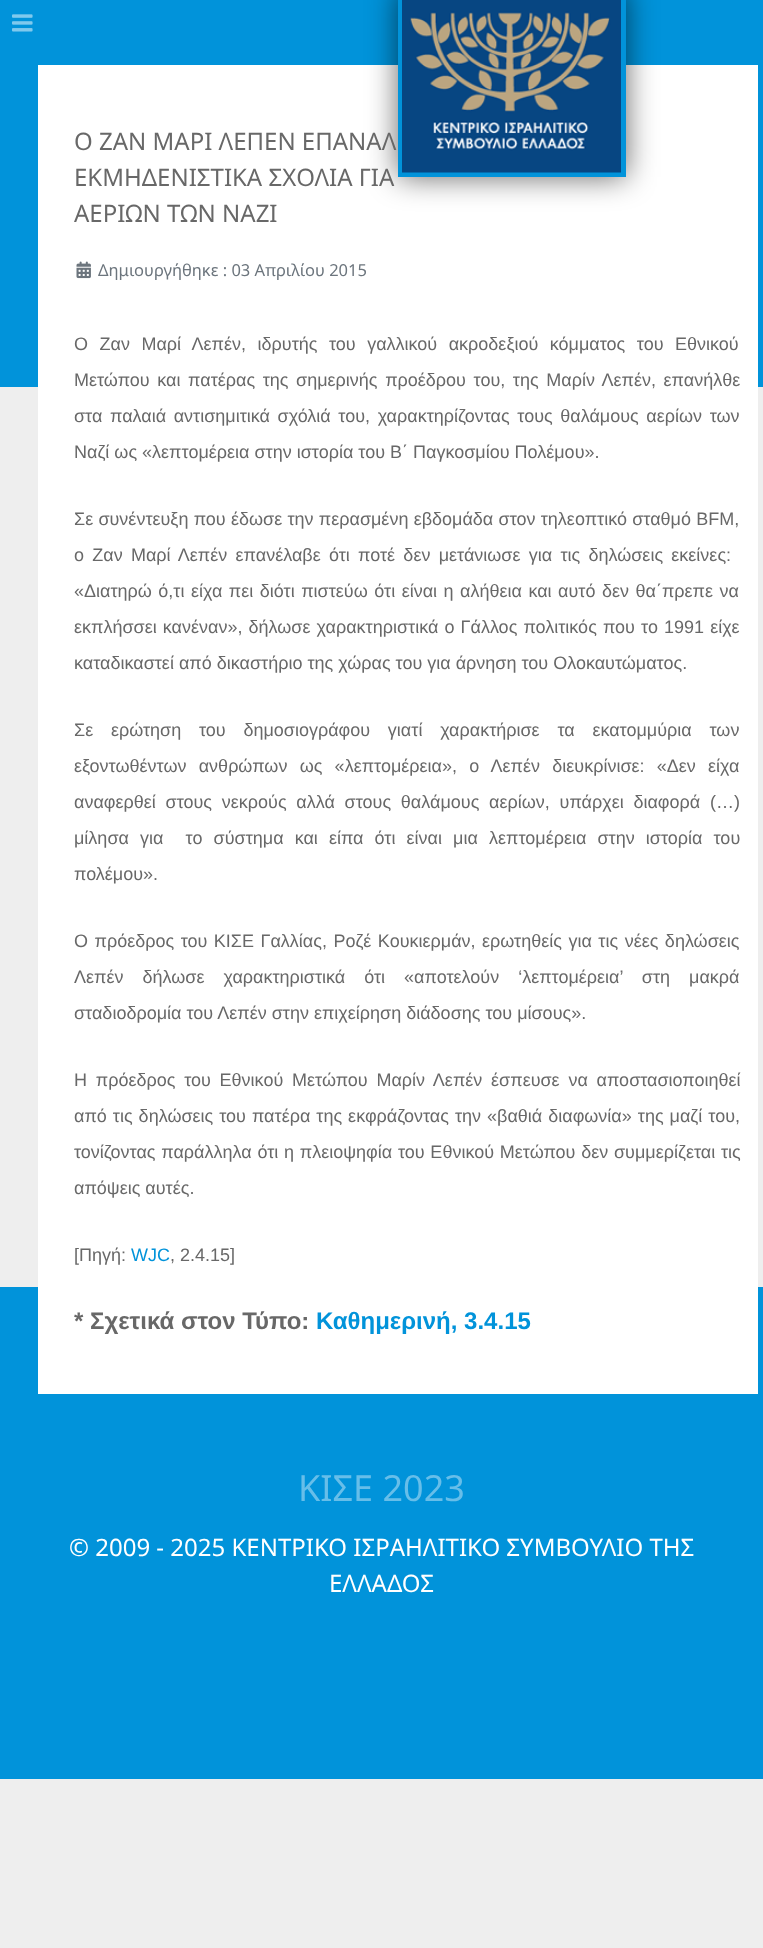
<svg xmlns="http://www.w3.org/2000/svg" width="763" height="1948">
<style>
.a{font:24px Noto Sans;fill:#686868}
.b{font:16.5px Noto Sans;fill:#6c757d}
.c{font:18px Liberation Sans;fill:#686868}
.d{font:18px Liberation Sans;fill:#0193da}
.e{font:bold 24px Liberation Sans;fill:#686868}
.f{font:bold 24px Liberation Sans;fill:#0193da}
.g{font:36px Noto Sans;fill:#67bee9}
.h{font:24px Noto Sans;fill:#fff}
</style>
<rect width="100%" height="100%" fill="#eee"/>
<path fill="#0193da" d="M0 0h763v387H0z"/>
<path fill="#0193da" d="M0 1287h763v492H0z"/>
<path fill="#fff" d="M38 65h720v1329H38z"/>
<path fill="#00000099" filter="blur(15px)" d="M398 -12h228v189H398z"/>
<path fill="#0193da" d="M398 0h228v177H398z"/>
<image href="1.png" x="402" y="0" width="219" height="173"/>
<image href="2.png" x="12" y="14" width="21" height="18"/>
<image href="3.png" x="76" y="261" width="15" height="18"/>
<text class="a" x="74" y="150">Ο ΖΑΝ ΜΑΡΙ ΛΕΠΕΝ ΕΠΑΝΑΛ</text>
<text class="a" x="74" y="186">ΕΚΜΗΔΕΝΙΣΤΙΚΑ ΣΧΟΛΙΑ ΓΙΑ</text>
<text class="a" x="74" y="222">ΑΕΡΙΩΝ ΤΩΝ ΝΑΖΙ</text>
<text class="b" x="98" y="276">Δημιουργήθηκε : 03 Απριλίου 2015</text>
<text class="c" x="74" y="350" word-spacing="6.5">Ο Ζαν Μαρί Λεπέν, ιδρυτής του γαλλικού ακροδεξιού κόμματος του Εθνικού</text>
<text class="c" x="74" y="386" word-spacing="2.6">Μετώπου και πατέρας της σημερινής προέδρου του, της Μαρίν Λεπέν, επανήλθε</text>
<text class="c" x="74" y="422" word-spacing="2.6">στα παλαιά αντισημιτικά σχόλιά του, χαρακτηρίζοντας τους θαλάμους αερίων των</text>
<text class="c" x="74" y="458">Ναζί ως «λεπτομέρεια στην ιστορία του Β΄ Παγκοσμίου Πολέμου».</text>
<text class="c" x="74" y="525" word-spacing="0.25">Σε συνέντευξη που έδωσε την περασμένη εβδομάδα στον τηλεοπτικό σταθμό BFM,</text>
<text class="c" x="74" y="561" word-spacing="3.25">ο Ζαν Μαρί Λεπέν επανέλαβε ότι ποτέ δεν μετάνιωσε για τις δηλώσεις εκείνες:</text>
<text class="c" x="74" y="597" word-spacing="1.5">«Διατηρώ ό,τι είχα πει διότι πιστεύω ότι είναι η αλήθεια και αυτό δεν θα΄πρεπε να</text>
<text class="c" x="74" y="633" word-spacing="1.1">εκπλήσσει κανέναν», δήλωσε χαρακτηριστικά ο Γάλλος πολιτικός που το 1991 είχε</text>
<text class="c" x="74" y="669">καταδικαστεί από δικαστήριο της χώρας του για άρνηση του Ολοκαυτώματος.</text>
<text class="c" x="74" y="736" word-spacing="12.75">Σε ερώτηση του δημοσιογράφου γιατί χαρακτήρισε τα εκατομμύρια των</text>
<text class="c" x="74" y="772" word-spacing="7.25">εξοντωθέντων ανθρώπων ως «λεπτομέρεια», ο Λεπέν διευκρίνισε: «Δεν είχα</text>
<text class="c" x="74" y="808" word-spacing="4.75">αναφερθεί στους νεκρούς αλλά στους θαλάμους αερίων, υπάρχει διαφορά (…)</text>
<text class="c" xml:space="preserve" x="74" y="844" word-spacing="6.1">μίλησα για  το σύστημα και είπα ότι είναι μια λεπτομέρεια στην ιστορία του</text>
<text class="c" x="74" y="880">πολέμου».</text>
<text class="c" x="74" y="947" word-spacing="1.5">Ο πρόεδρος του ΚΙΣΕ Γαλλίας, Ροζέ Κουκιερμάν, ερωτηθείς για τις νέες δηλώσεις</text>
<text class="c" x="74" y="983" word-spacing="14">Λεπέν δήλωσε χαρακτηριστικά ότι «αποτελούν ‘λεπτομέρεια’ στη μακρά</text>
<text class="c" x="74" y="1019">σταδιοδρομία του Λεπέν στην επιχείρηση διάδοσης του μίσους».</text>
<text class="c" x="74" y="1086" word-spacing="3.75">H πρόεδρος του Εθνικού Μετώπου Μαρίν Λεπέν έσπευσε να αποστασιοποιηθεί</text>
<text class="c" x="74" y="1122" word-spacing="1">από τις δηλώσεις του πατέρα της εκφράζοντας την «βαθιά διαφωνία» της μαζί του,</text>
<text class="c" x="74" y="1158" word-spacing="0.75">τονίζοντας παράλληλα ότι η πλειοψηφία του Εθνικού Μετώπου δεν συμμερίζεται τις</text>
<text class="c" x="74" y="1194">απόψεις αυτές.</text>
<text class="c" x="74" y="1261">[Πηγή:</text>
<text class="d" x="131" y="1261">WJC</text>
<text class="c" x="170" y="1261">, 2.4.15]</text>
<text class="e" x="74" y="1329">* Σχετικά στον Τύπο:</text>
<text class="f" x="316" y="1329">Καθημερινή, 3.4.15</text>
<text class="g" x="298" y="1501">ΚΙΣΕ 2023</text>
<text class="h" x="69" y="1556">© 2009 - 2025 ΚΕΝΤΡΙΚΟ ΙΣΡΑΗΛΙΤΙΚΟ ΣΥΜΒΟΥΛΙΟ ΤΗΣ</text>
<text class="h" x="329" y="1592">ΕΛΛΑΔΟΣ</text>
</svg>
